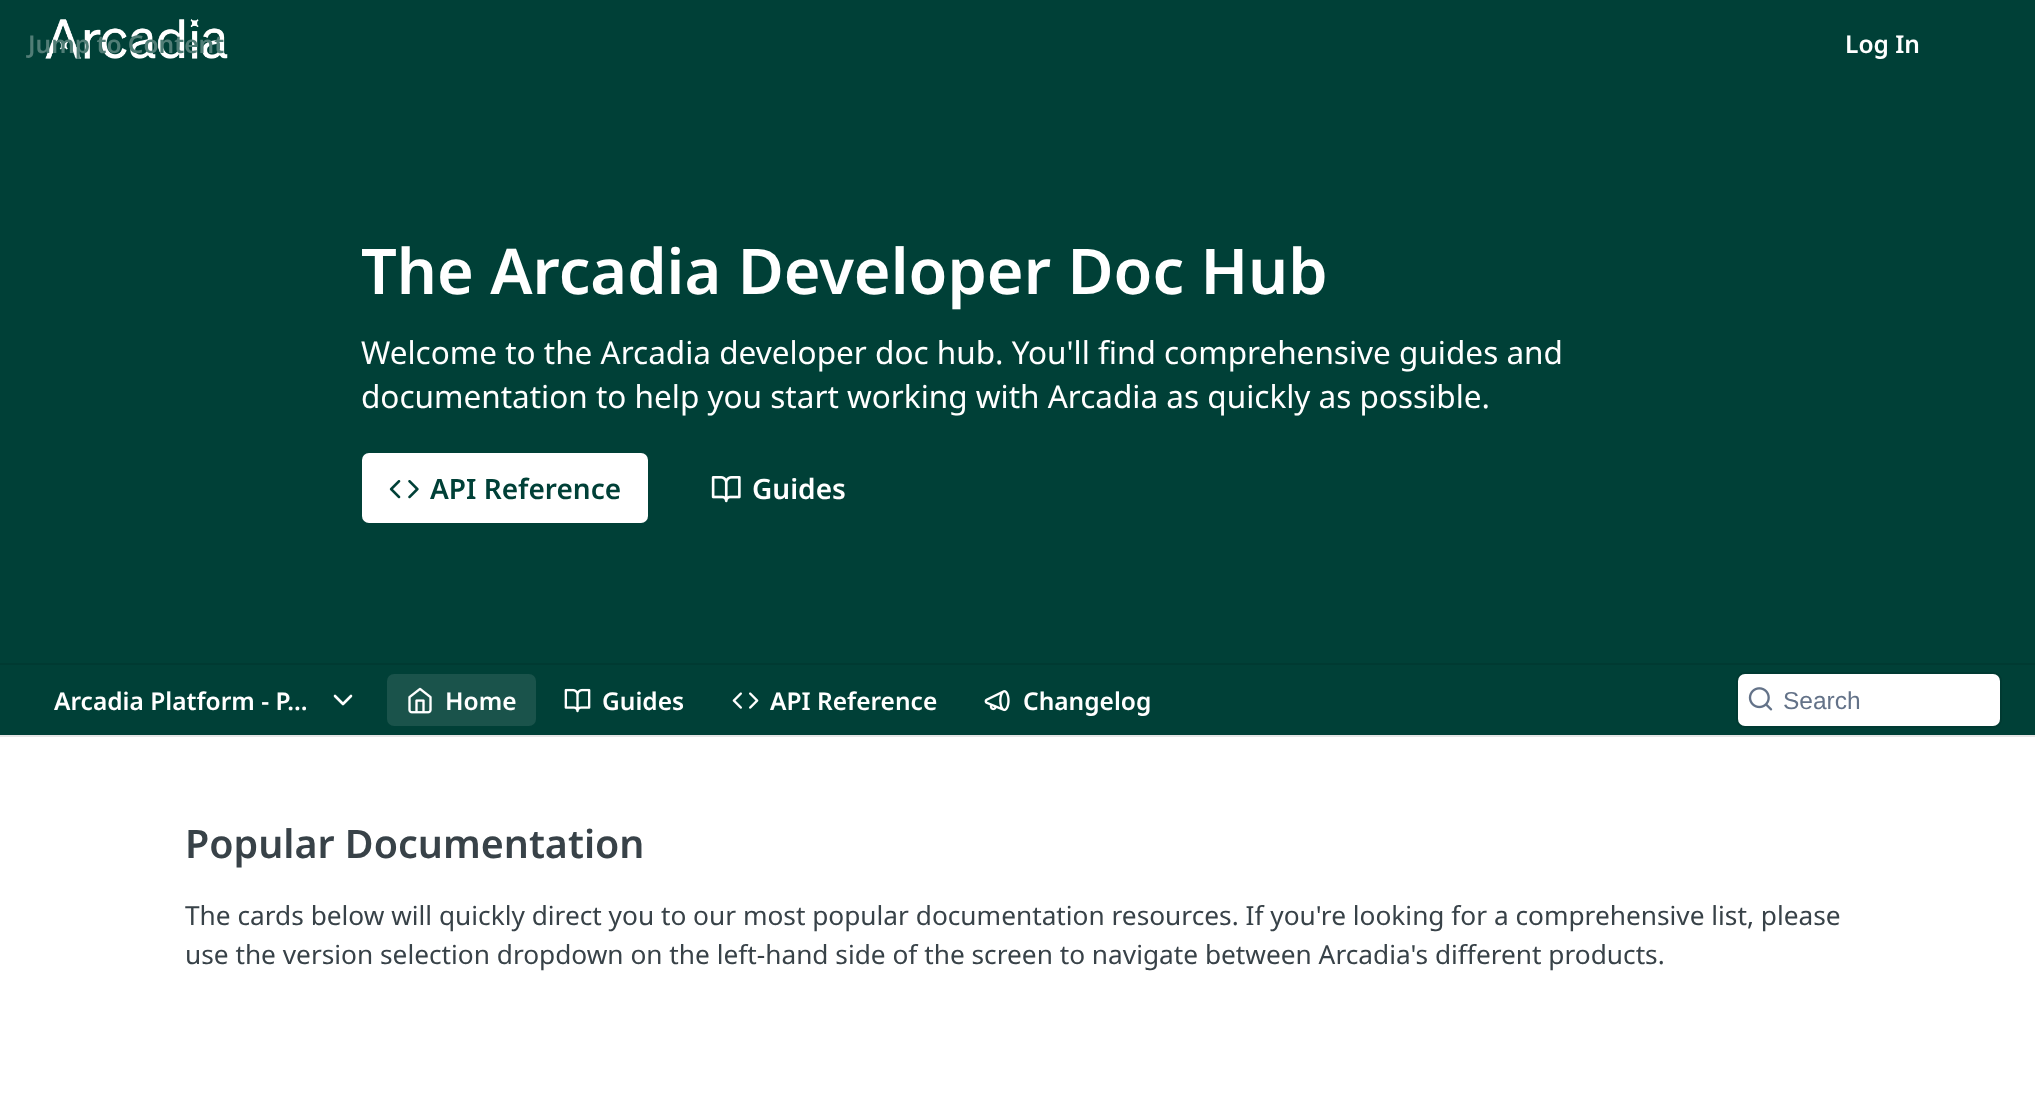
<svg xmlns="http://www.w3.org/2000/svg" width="2035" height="1111">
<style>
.a{font:600 24.5px Noto Sans;fill:#517d76}
.b{font:600 24.5px Noto Sans;fill:#fff}
.c{font:600 63px Noto Sans;fill:#fff}
.d{font:31.5px Noto Sans;fill:#fff}
.e{font:600 28px Noto Sans;fill:#004037}
.f{font:600 28px Noto Sans;fill:#fff}
.g{font:24.5px Liberation Sans;fill:#637288}
.h{font:600 39.4px Noto Sans;fill:#384248}
.i{font:26.25px Noto Sans;fill:#384248}
</style>
<rect width="100%" height="100%" fill="#fff"/>
<path fill="#e6e6e6" d="M0 735h2035v2H0z"/>
<path fill="#004037" d="M0 0h2035v735H0z"/>
<path fill="#003a32" d="M0 663h2035v2H0z"/>
<image href="1.png" x="45" y="19" width="183" height="40"/>
<rect fill="#fff" x="362" y="453" width="286" height="70" rx="7"/>
<image href="2.png" x="389" y="480" width="30" height="19"/>
<image href="3.png" x="711" y="476" width="30" height="27"/>
<path fill="none" stroke="#fff" stroke-width="2.6" stroke-linecap="round" stroke-linejoin="round" d="M335 696l8 8l8-8"/>
<rect fill="#1a534b" x="387" y="674" width="149" height="52" rx="7"/>
<image href="4.png" x="408" y="687" width="24" height="27"/>
<image href="5.png" x="564" y="688" width="27" height="25"/>
<image href="6.png" x="732" y="692" width="27" height="17"/>
<image href="7.png" x="984" y="690" width="26" height="22"/>
<rect fill="none" stroke="#003a32" stroke-width="2" x="1737" y="673" width="264" height="54" rx="8"/>
<rect fill="#fff" x="1738" y="674" width="262" height="52" rx="7"/>
<image href="8.png" x="1748" y="687" width="25" height="24"/>
<text class="a" x="28" y="53">Jump to Content</text>
<text class="b" x="1845" y="53">Log In</text>
<text class="c" x="361" y="294">The Arcadia Developer Doc Hub</text>
<text class="d" x="361" y="364">Welcome to the Arcadia developer doc hub. You'll find comprehensive guides and</text>
<text class="d" x="361" y="408">documentation to help you start working with Arcadia as quickly as possible.</text>
<text class="e" x="430" y="499">API Reference</text>
<text class="f" x="752" y="499">Guides</text>
<text class="b" x="54" y="710">Arcadia Platform - P…</text>
<text class="b" x="445" y="710">Home</text>
<text class="b" x="602" y="710">Guides</text>
<text class="b" x="770" y="710">API Reference</text>
<text class="b" x="1023" y="710">Changelog</text>
<text class="g" x="1783" y="709">Search</text>
<text class="h" x="185" y="858">Popular Documentation</text>
<text class="i" x="185" y="925">The cards below will quickly direct you to our most popular documentation resources. If you're looking for a comprehensive list, please</text>
<text class="i" x="185" y="964">use the version selection dropdown on the left-hand side of the screen to navigate between Arcadia's different products.</text>
</svg>
